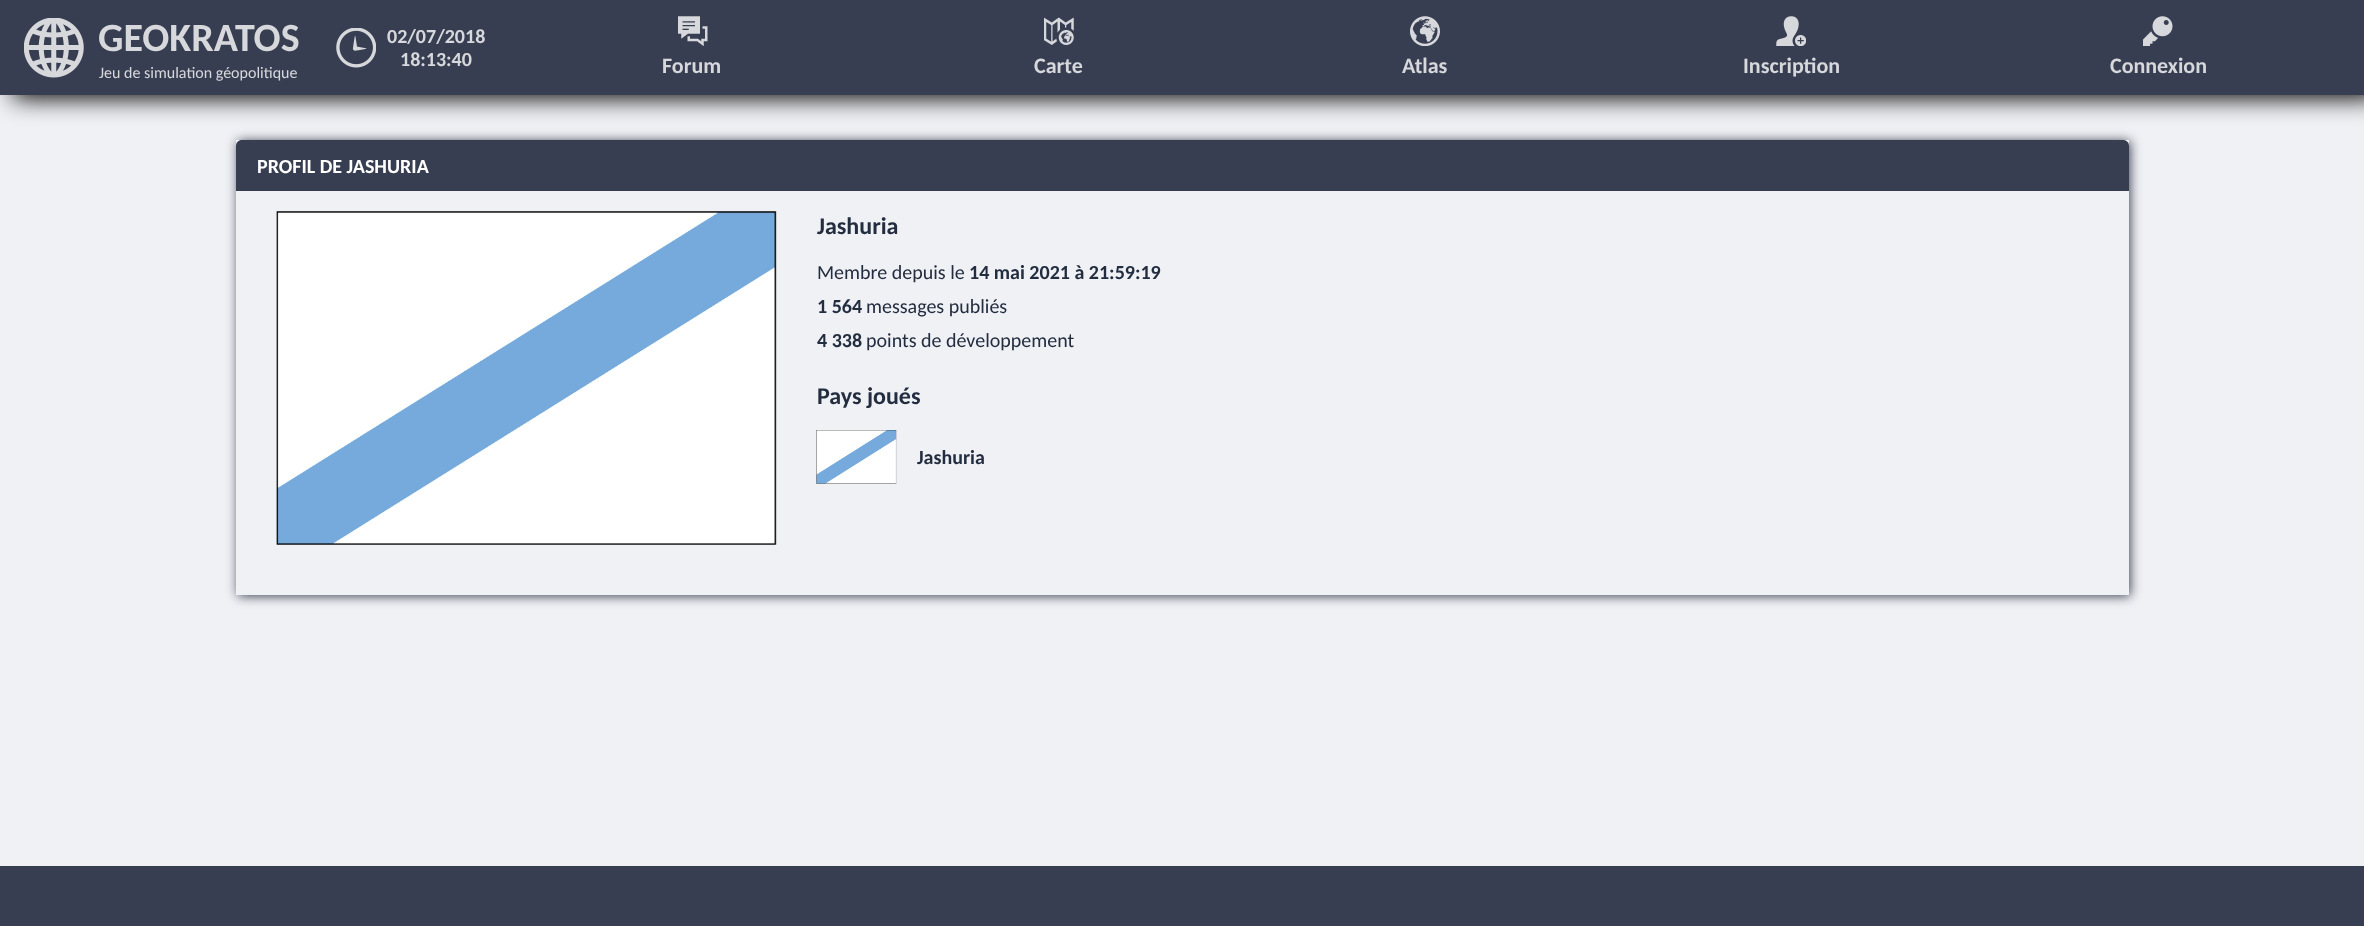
<svg xmlns="http://www.w3.org/2000/svg" width="2364" height="926">
<style>
.a{font:bold 40px Carlito;fill:#d7d8dc}
.b{font:16px Carlito;fill:#d7d8dc}
.c{font:bold 20px Carlito;fill:#d7d8dc}
.d{font:bold 22px Carlito;fill:#d7d8dc}
.e{font:bold 20px Carlito;fill:#fff}
.f{font:bold 24px Carlito;fill:#232d40}
.g{font:20px Carlito;fill:#232d40}
.h{font:bold 20px Carlito;fill:#232d40}
</style>
<defs>
<clipPath id="clip1"><path d="M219 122h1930v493h-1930zm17 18h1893v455h-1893z" clip-rule="evenodd"/></clipPath>
</defs>
<rect width="100%" height="100%" fill="#f0f1f5"/>
<path fill="#000" filter="blur(12.5px)" d="M13 3h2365v95H13z"/>
<path fill="#383e52" d="M0 0h2364v95H0z"/>
<image href="1.png" x="24" y="18" width="60" height="60"/>
<image href="2.png" x="336" y="28" width="40" height="40"/>
<image href="3.png" x="678" y="16" width="30" height="30"/>
<image href="4.png" x="1044" y="17" width="30" height="28"/>
<image href="5.png" x="1410" y="16" width="30" height="30"/>
<image href="6.png" x="1776" y="16" width="30" height="30"/>
<image href="7.png" x="2143" y="16" width="30" height="30"/>
<g clip-path="url(#clip1)">
<path fill="#353c4a" filter="blur(6px)" d="M238 141h1892v455H238z"/>
</g>
<path fill="#383e51" d="M242 140h1881c3.5 0 6 2.5 6 6v45h-1893v-45c0-3.5 2.5-6 6-6z"/>
<image href="8.png" x="276" y="211" width="501" height="334"/>
<image href="9.png" x="816" y="430" width="81" height="54"/>
<path fill="#383e52" d="M0 866h2364v60H0z"/>
<text class="a" x="98" y="51">GEOKRATOS</text>
<text class="b" x="99" y="78">Jeu de simulation géopolitique</text>
<text class="c" x="387" y="43">02/07/2018</text>
<text class="c" x="400" y="66">18:13:40</text>
<text class="d" x="662" y="73">Forum</text>
<text class="d" x="1034" y="73">Carte</text>
<text class="d" x="1402" y="73">Atlas</text>
<text class="d" x="1743" y="73">Inscription</text>
<text class="d" x="2110" y="73">Connexion</text>
<text class="e" x="257" y="173">PROFIL DE JASHURIA</text>
<text class="f" x="817" y="234">Jashuria</text>
<text class="g" x="817" y="279">Membre depuis le</text>
<text class="h" x="969" y="279">14 mai 2021 à 21:59:19</text>
<text class="h" x="817" y="313">1 564</text>
<text class="g" x="866" y="313">messages publiés</text>
<text class="h" x="817" y="347">4 338</text>
<text class="g" x="866" y="347">points de développement</text>
<text class="f" x="817" y="404">Pays joués</text>
<text class="h" x="917" y="464">Jashuria</text>
</svg>
